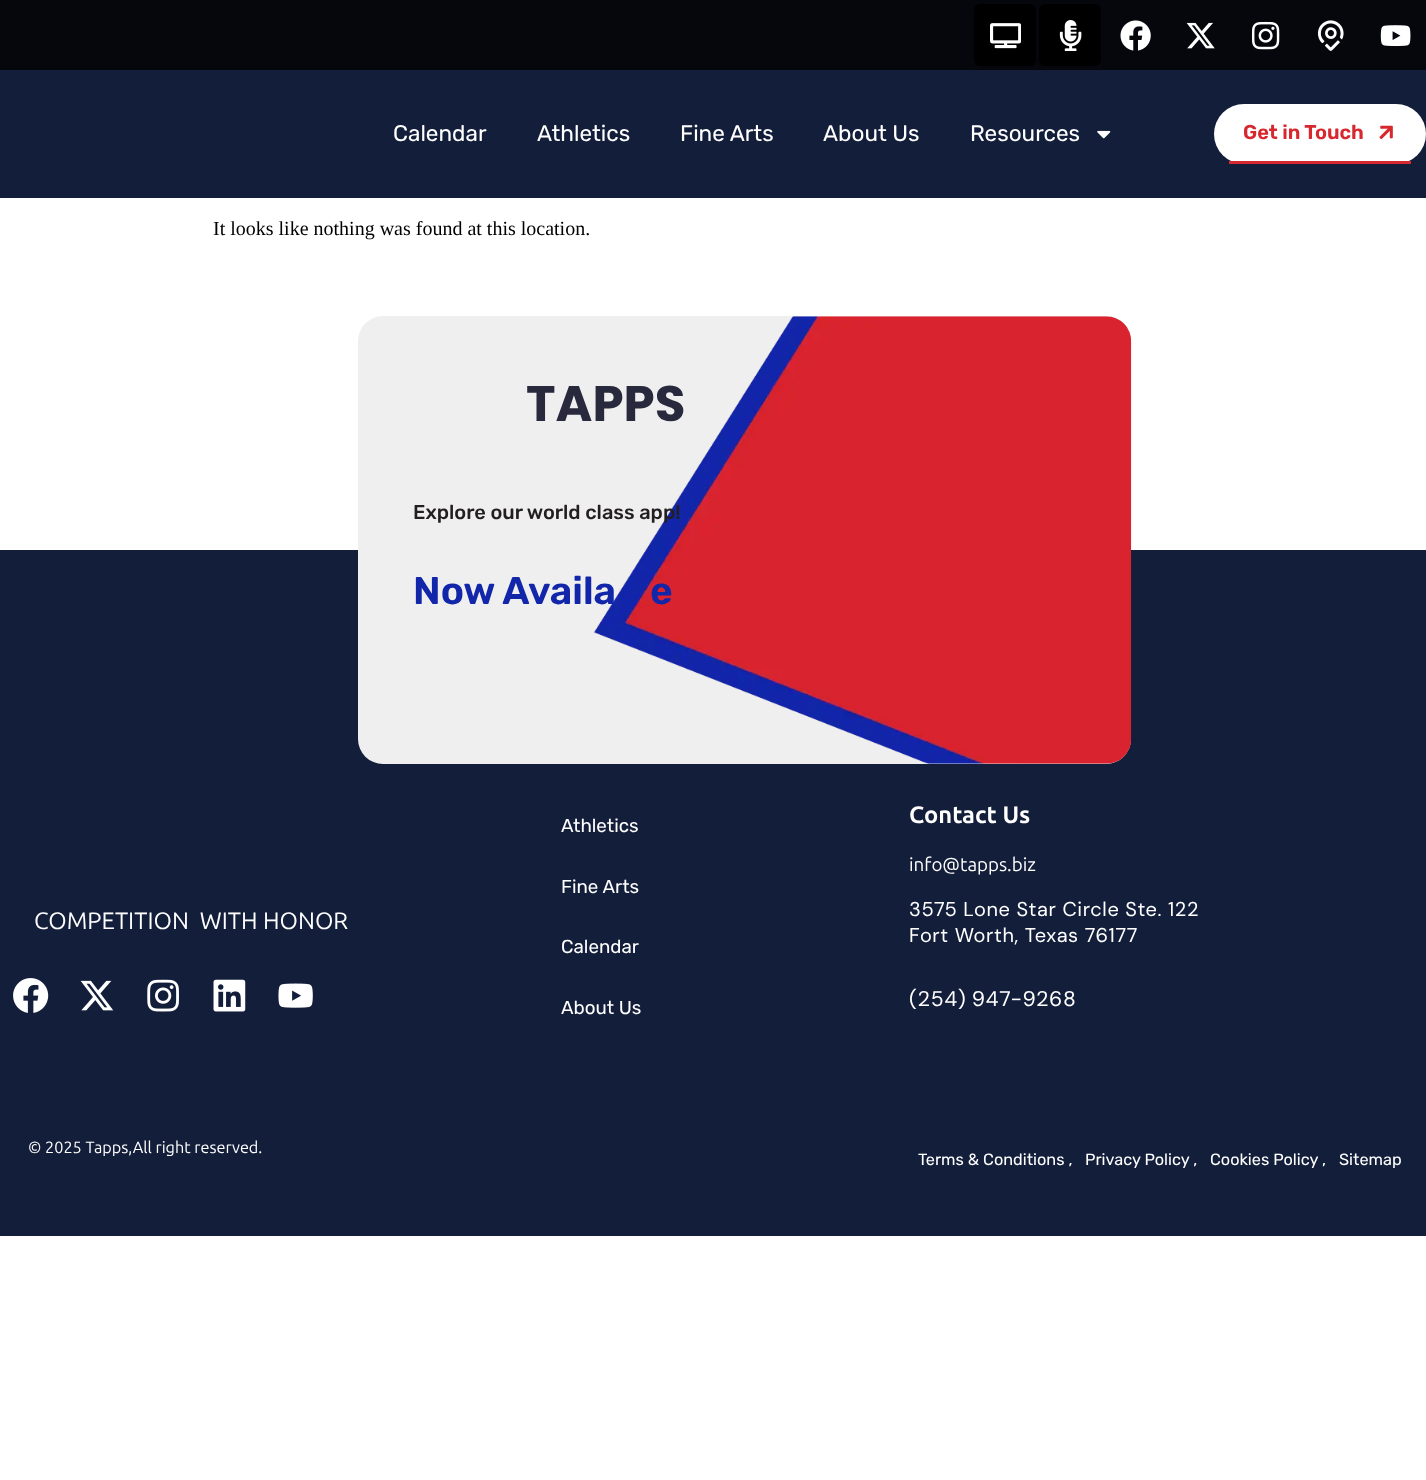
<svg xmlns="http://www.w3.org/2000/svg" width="1426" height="1480">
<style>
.a{font:22.5px Rubik;fill:#fff}
.b{font:600 20px Rubik;fill:#d7282f}
.c{font:20px Liberation Serif;fill:#000}
.d{font:bold 50px Poppins;fill:#28293d}
.e{font:500 20px Rubik;fill:#231f20}
.f{font:600 38.75px Rubik;fill:#1226aa}
.g{font:23.75px Ubuntu;fill:#fff}
.h{font:18.75px Rubik;fill:#fff}
.i{font:bold 23.75px Ubuntu;fill:#fff}
.j{font:18.75px Ubuntu;fill:#fff}
.k{font:20px DM Sans;letter-spacing:0.6px;fill:#fff}
.l{font:21.25px 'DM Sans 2';letter-spacing:0.6px;fill:#fff}
.m{font:16.25px Ubuntu;fill:#fff}
.n{font:16.25px Rubik;fill:#fff}
</style>
<rect width="100%" height="100%" fill="#fff"/>
<path fill="#05070d" d="M0 0h1426v70H0z"/>
<rect fill="#000" x="974" y="4" width="62" height="62" rx="6"/>
<image href="1.png" x="990" y="23" width="31" height="26"/>
<rect fill="#000" x="1039" y="4" width="62" height="62" rx="6"/>
<image href="2.png" x="1059" y="20" width="23" height="31"/>
<image href="3.png" x="1120" y="20" width="31" height="31"/>
<image href="4.png" x="1186" y="22" width="29" height="27"/>
<image href="5.png" x="1251" y="21" width="29" height="29"/>
<image href="6.png" x="1317" y="20" width="27" height="31"/>
<image href="7.png" x="1380" y="25" width="31" height="22"/>
<path fill="#131e3a" d="M0 70h1426v128H0z"/>
<image href="8.png" x="1097" y="130" width="14" height="9"/>
<rect fill="#fff" x="1214" y="104" width="212" height="60" rx="30"/>
<path fill="#d7282f" d="M1229 161h182v3H1229z"/>
<image href="9.png" x="1379" y="125" width="14" height="14"/>
<path fill="#131e3a" d="M0 550h1426v686H0z"/>
<rect fill="#efefef" x="358" y="316" width="773" height="448" rx="25"/>
<image href="10.png" x="593" y="316" width="539" height="448"/>
<image href="11.png" x="13" y="978" width="36" height="35"/>
<image href="12.png" x="80" y="980" width="34" height="31"/>
<image href="13.png" x="147" y="979" width="32" height="33"/>
<image href="14.png" x="213" y="979" width="33" height="33"/>
<image href="15.png" x="278" y="983" width="35" height="25"/>
<text class="a" x="393" y="141">Calendar</text>
<text class="a" x="537" y="141">Athletics</text>
<text class="a" x="680" y="141">Fine Arts</text>
<text class="a" x="823" y="141">About Us</text>
<text class="a" x="970" y="141">Resources</text>
<text class="b" x="1243" y="139">Get in Touch</text>
<text class="c" x="213" y="235">It looks like nothing was found at this location.</text>
<text class="d" x="526" y="421">TAPPS</text>
<text class="e" x="413" y="519">Explore our world class app!</text>
<text class="f" x="413" y="604">Now Availa</text>
<text class="f" x="650" y="604">e</text>
<text class="g" xml:space="preserve" x="34" y="929">COMPETITION  WITH HONOR</text>
<text class="h" x="561" y="832">Athletics</text>
<text class="h" x="561" y="893">Fine Arts</text>
<text class="h" x="561" y="953">Calendar</text>
<text class="h" x="561" y="1014">About Us</text>
<text class="i" x="909" y="823">Contact Us</text>
<text class="j" x="909" y="871">info@tapps.biz</text>
<text class="k" x="909" y="916">3575 Lone Star Circle Ste. 122</text>
<text class="k" x="909" y="942">Fort Worth, Texas 76177</text>
<text class="l" x="909" y="1006" word-spacing="-1">(254) 947-9268</text>
<text class="m" x="28" y="1153">© 2025 Tapps,All right reserved.</text>
<text class="n" x="918" y="1165">Terms &amp; Conditions ,</text>
<text class="n" x="1085" y="1165">Privacy Policy ,</text>
<text class="n" x="1210" y="1165">Cookies Policy ,</text>
<text class="n" x="1339" y="1165">Sitemap</text>
</svg>
